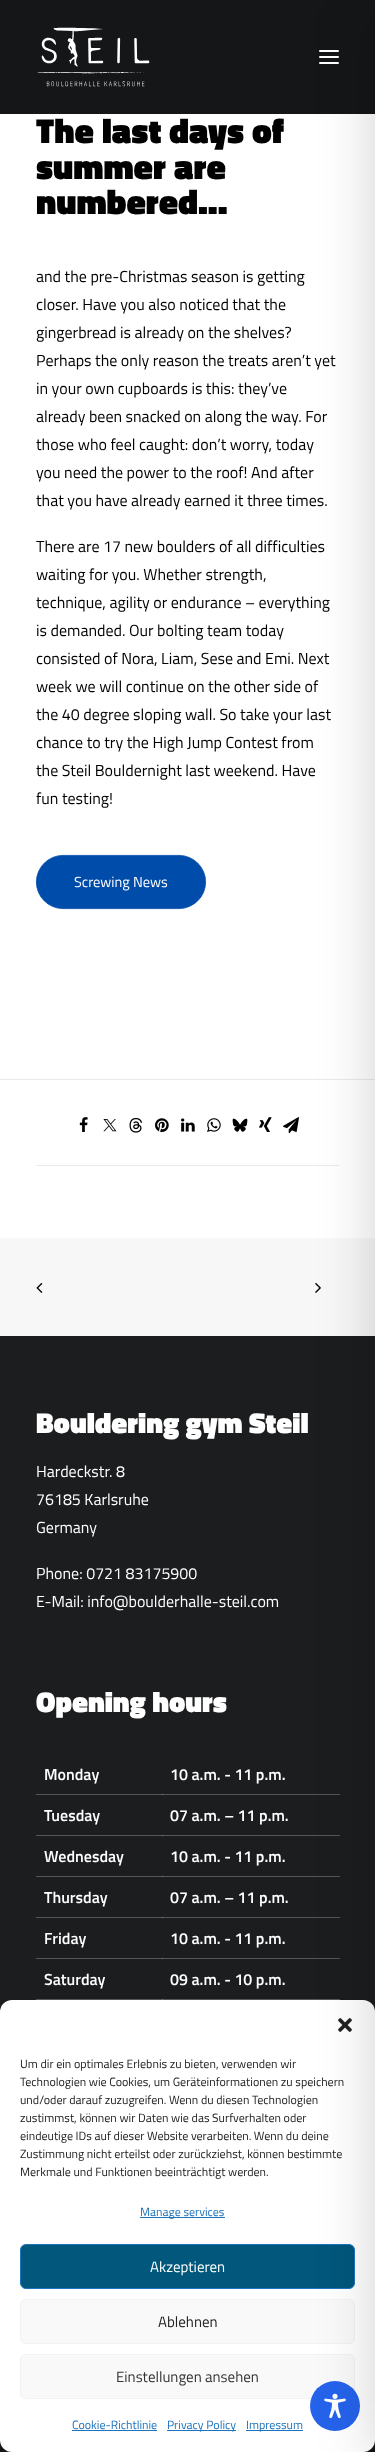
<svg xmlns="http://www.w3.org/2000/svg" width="375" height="2452">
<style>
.a{font:900 35px Titillium Web;fill:#000}
.b{font:16px Titillium Web;fill:#000}
.c{font:14.5px Titillium Web;fill:#fff}
.d{font:900 29px Titillium Web;fill:#fff}
.e{font:16px Titillium Web;fill:#fff}
.f{font:600 16px Titillium Web;fill:#fff}
.g{font:12px Titillium Web;fill:#222}
.h{font:12px Titillium Web;fill:#1e73be}
.i{font:15px Titillium Web;fill:#fff}
.j{font:15px Titillium Web;fill:#222}
.k{font:15px Titillium Web;fill:#333}
</style>
<rect width="100%" height="100%" fill="#141618"/>
<rect fill="#fff" x="319" y="56" width="20" height="2" rx="1"/>
<rect fill="#fff" x="319" y="50" width="20" height="2" rx="1"/>
<rect fill="#fff" x="319" y="62" width="20" height="2" rx="1"/>
<path fill="#fff" d="M0 114h375v1124H0z"/>
<path fill="#eaeaea" d="M0 1079h375v1H0z"/>
<path fill="#eaeaea" d="M36 1165h303v1H36z"/>
<image href="10.png" x="283" y="1117" width="16" height="17"/>
<path fill="#f7f7f7" d="M0 1238h375v98H0z"/>
<image href="12.png" x="315" y="1283" width="6" height="10"/>
<path fill="#1b1d1f" d="M0 1336h375v676H0z"/>
<path fill="#545657" d="M36 1794h304v1H36z"/>
<path fill="#545657" d="M36 1835h304v1H36z"/>
<path fill="#545657" d="M36 1876h304v1H36z"/>
<path fill="#545657" d="M36 1917h304v1H36z"/>
<path fill="#545657" d="M36 1958h304v1H36z"/>
<path fill="#545657" d="M36 1999h304v1H36z"/>
<rect fill="#fff" y="2000" width="375" height="452" rx="12"/>
<image href="13.png" x="338" y="2018" width="14" height="14"/>
<rect fill="#01577c" stroke="#1e73be" x="20.5" y="2244.5" width="334" height="44" rx="5.5"/>
<rect fill="#f9f9f9" stroke="#f2f2f2" x="20.5" y="2299.5" width="334" height="44" rx="5.5"/>
<rect fill="#f9f9f9" stroke="#f2f2f2" x="20.5" y="2354.5" width="334" height="44" rx="5.5"/>
<path fill="#1e73be" d="M246 2430h57v1H246z"/>
<circle fill="#2563eb" cx="335" cy="2406" r="25"/>
<image href="14.png" x="324" y="2393" width="22" height="26"/>
<path fill="#00000033" filter="blur(30px)" d="M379 10h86v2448H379z"/>
<image href="1.png" x="37" y="27" width="113" height="60"/>
<rect fill="#004caa" stroke="#004caa" stroke-width="0.8" x="36.4" y="855.4" width="169.2" height="53.2" rx="26.6"/>
<image href="2.png" x="79" y="1117" width="9" height="15"/>
<image href="3.png" x="103" y="1119" width="14" height="13"/>
<image href="4.png" x="129" y="1117" width="14" height="16"/>
<image href="5.png" x="155" y="1118" width="14" height="14"/>
<image href="6.png" x="181" y="1118" width="14" height="14"/>
<image href="7.png" x="207" y="1118" width="14" height="14"/>
<image href="8.png" x="232" y="1118" width="16" height="14"/>
<image href="9.png" x="259" y="1117" width="13" height="15"/>
<image href="11.png" x="36" y="1282" width="7" height="11"/>
<path fill="#7f8081" d="M162 1794h1v1H162z"/>
<path fill="#7f8081" d="M162 1835h1v1H162z"/>
<path fill="#7f8081" d="M162 1876h1v1H162z"/>
<path fill="#7f8081" d="M162 1917h1v1H162z"/>
<path fill="#7f8081" d="M162 1958h1v1H162z"/>
<path fill="#7f8081" d="M162 1999h1v1H162z"/>
<path fill="#1e73be" d="M140 2217h85v1H140z"/>
<path fill="#1e73be" d="M72 2430h85v1H72z"/>
<path fill="#1e73be" d="M167 2430h69v1H167z"/>
<text class="a" x="36" y="143">The</text>
<text class="a" x="102" y="143">last</text>
<text class="a" x="169" y="143">days</text>
<text class="a" x="252" y="143">of</text>
<text class="a" x="36" y="179">summer</text>
<text class="a" x="174" y="179">are</text>
<text class="a" x="36" y="214">numbered...</text>
<text class="b" x="36" y="282">and the pre-Christmas season is getting</text>
<text class="b" x="36" y="310">closer. Have you also noticed that the</text>
<text class="b" x="36" y="338">gingerbread is already on the shelves?</text>
<text class="b" x="36" y="366">Perhaps the only reason the treats aren’t yet</text>
<text class="b" x="36" y="394">in your own cupboards is this: they’ve</text>
<text class="b" x="36" y="422">already been snacked on along the way. For</text>
<text class="b" x="36" y="450">those who feel caught: don’t worry, today</text>
<text class="b" x="36" y="478">you need the power to the roof! And after</text>
<text class="b" x="36" y="506">that you have already earned it three times.</text>
<text class="b" x="36" y="552">There are 17 new boulders of all difficulties</text>
<text class="b" x="36" y="580">waiting for you. Whether strength,</text>
<text class="b" x="36" y="608">technique, agility or endurance – everything</text>
<text class="b" x="36" y="636">is demanded. Our bolting team today</text>
<text class="b" x="36" y="664">consisted of Nora, Liam, Sese and Emi. Next</text>
<text class="b" x="36" y="692">week we will continue on the other side of</text>
<text class="b" x="36" y="720">the 40 degree sloping wall. So take your last</text>
<text class="b" x="36" y="748">chance to try the High Jump Contest from</text>
<text class="b" x="36" y="776">the Steil Bouldernight last weekend. Have</text>
<text class="b" x="36" y="804">fun testing!</text>
<text class="c" x="74" y="887">Screwing News</text>
<text class="d" x="36" y="1433">Bouldering gym Steil</text>
<text class="e" x="36" y="1477">Hardeckstr. 8</text>
<text class="e" x="36" y="1505">76185 Karlsruhe</text>
<text class="e" x="36" y="1533">Germany</text>
<text class="e" x="36" y="1579">Phone: 0721 83175900</text>
<text class="e" x="36" y="1607">E-Mail: info@boulderhalle-steil.com</text>
<text class="d" x="36" y="1712">Opening hours</text>
<text class="f" x="44" y="1780">Monday</text>
<text class="f" x="170" y="1780">10 a.m. - 11 p.m.</text>
<text class="f" x="44" y="1821">Tuesday</text>
<text class="f" x="170" y="1821">07 a.m. – 11 p.m.</text>
<text class="f" x="44" y="1862">Wednesday</text>
<text class="f" x="170" y="1862">10 a.m. - 11 p.m.</text>
<text class="f" x="44" y="1903">Thursday</text>
<text class="f" x="170" y="1903">07 a.m. – 11 p.m.</text>
<text class="f" x="44" y="1944">Friday</text>
<text class="f" x="170" y="1944">10 a.m. - 11 p.m.</text>
<text class="f" x="44" y="1985">Saturday</text>
<text class="f" x="170" y="1985">09 a.m. - 10 p.m.</text>
<text class="g" x="20" y="2068">Um dir ein optimales Erlebnis zu bieten, verwenden wir</text>
<text class="g" x="20" y="2086">Technologien wie Cookies, um Geräteinformationen zu speichern</text>
<text class="g" x="20" y="2104">und/oder darauf zuzugreifen. Wenn du diesen Technologien</text>
<text class="g" x="20" y="2122">zustimmst, können wir Daten wie das Surfverhalten oder</text>
<text class="g" x="20" y="2140">eindeutige IDs auf dieser Website verarbeiten. Wenn du deine</text>
<text class="g" x="20" y="2158">Zustimmung nicht erteilst oder zurückziehst, können bestimmte</text>
<text class="g" x="20" y="2176">Merkmale und Funktionen beeinträchtigt werden.</text>
<text class="h" x="140" y="2216">Manage services</text>
<text class="i" x="150" y="2272">Akzeptieren</text>
<text class="j" x="158" y="2327">Ablehnen</text>
<text class="k" x="116" y="2382">Einstellungen ansehen</text>
<text class="h" x="72" y="2429">Cookie-Richtlinie</text>
<text class="h" x="167" y="2429">Privacy Policy</text>
<text class="h" x="246" y="2429">Impressum</text>
</svg>
